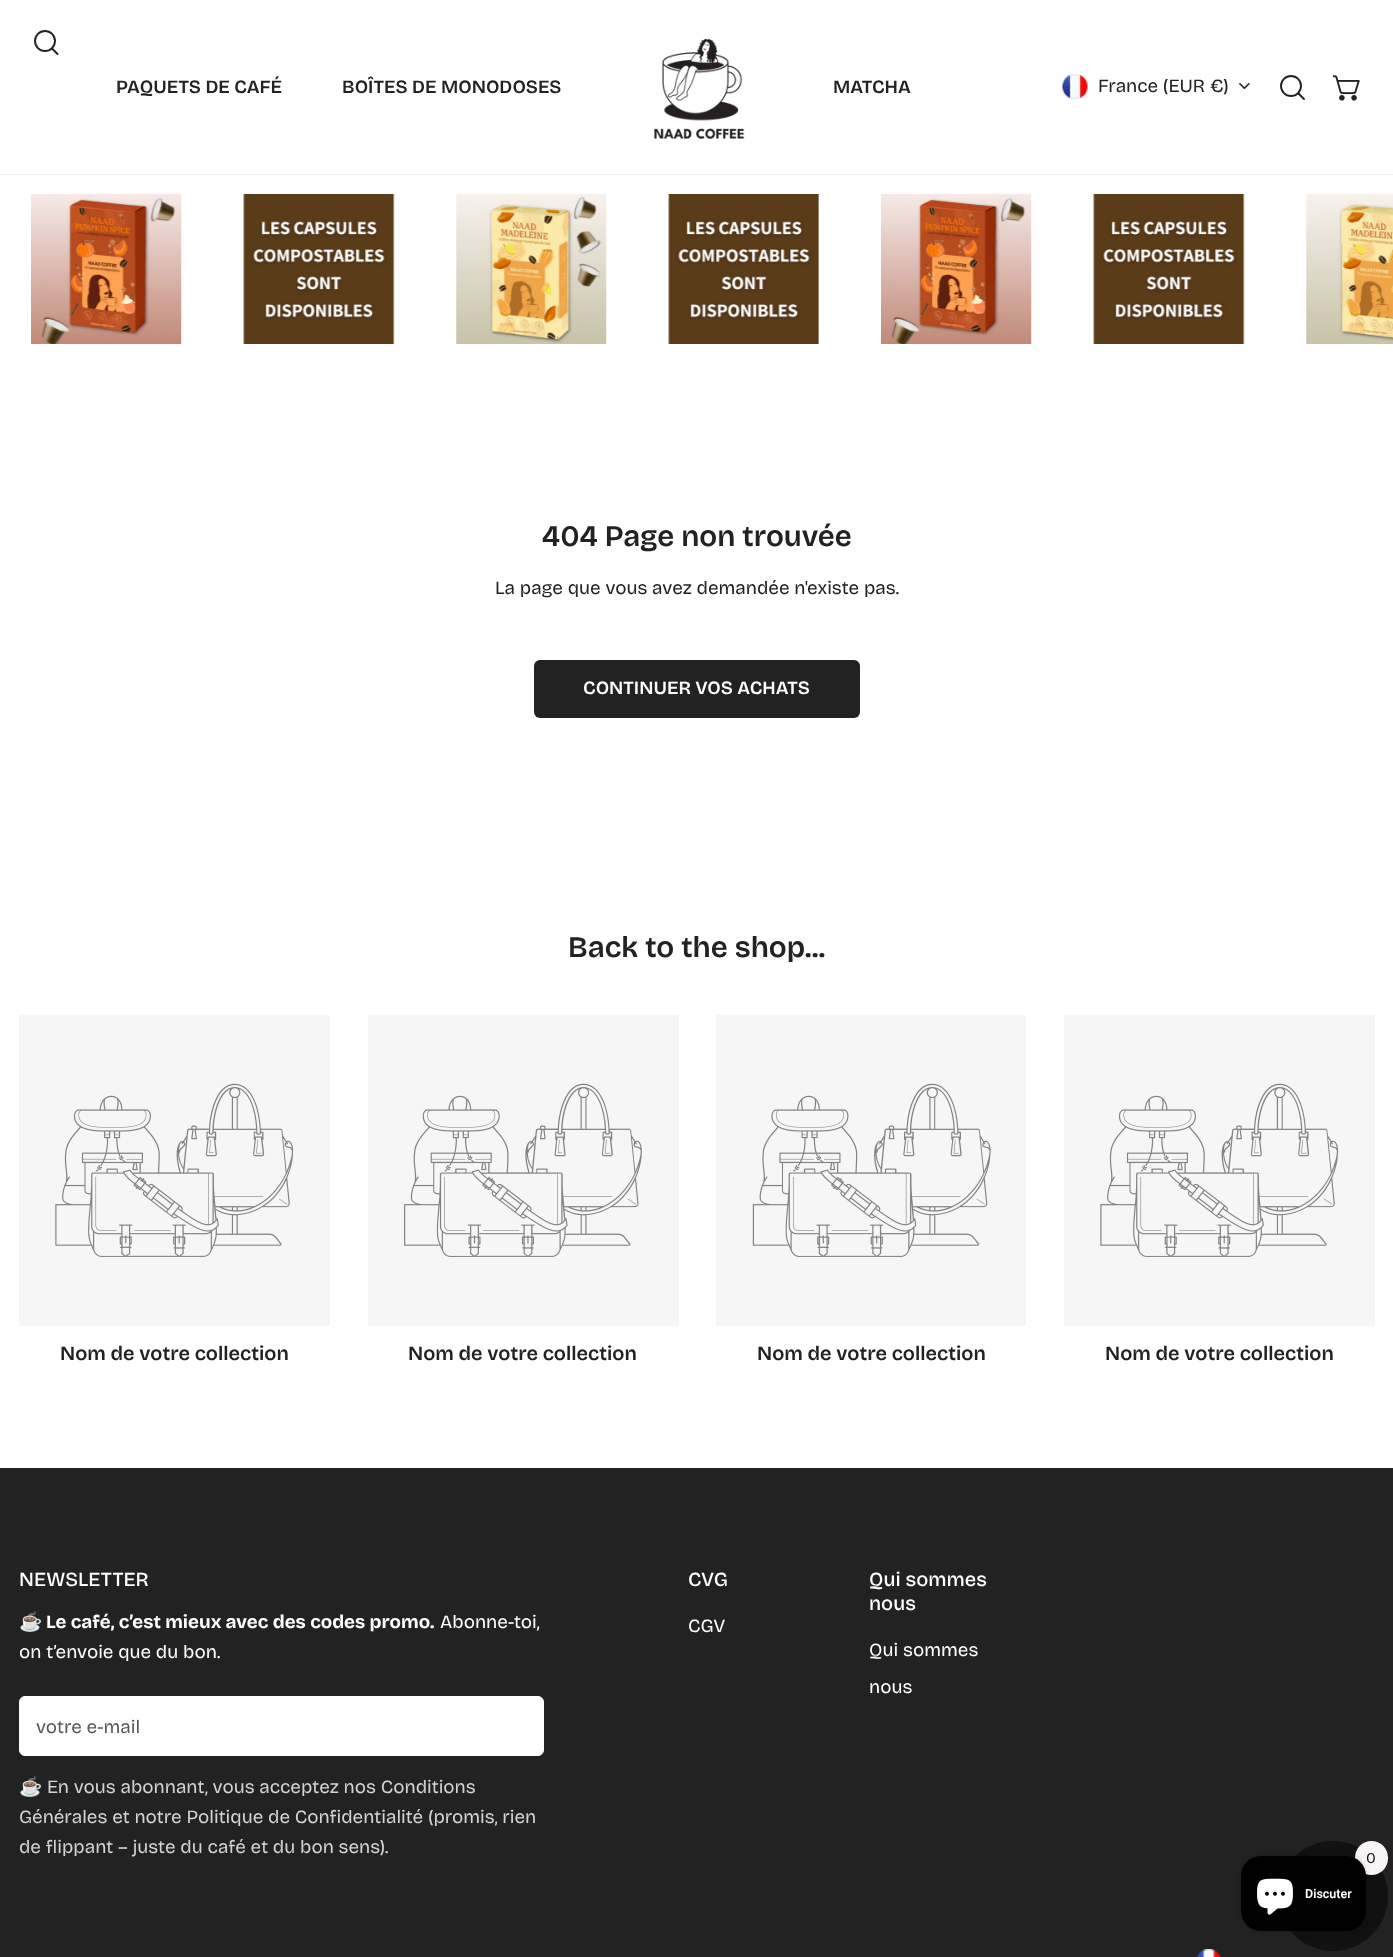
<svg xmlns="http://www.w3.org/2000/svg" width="1393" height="1957">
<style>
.a{font:600 18.75px 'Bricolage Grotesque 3';fill:#222}
.b{font:18.75px Bricolage Grotesque;fill:#222}
.c{font:600 29.75px Bricolage Grotesque;fill:#222}
.d{font:600 18.75px 'Bricolage Grotesque 3';fill:#fff}
.e{font:600 20px 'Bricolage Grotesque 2';fill:#222}
.f{font:500 20px Bricolage Grotesque;fill:#fff}
.g{font:18.75px Noto Color Emoji;fill:#fff}
.h{font:bold 18.75px Bricolage Grotesque;fill:#fff}
.i{font:18.75px Bricolage Grotesque;fill:#fff}
.j{font:18.75px Bricolage Grotesque;fill:#595959}
.k{font:18.75px 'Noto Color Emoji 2';fill:#d3d3d3}
.l{font:18.75px Bricolage Grotesque;fill:#d3d3d3}
.m{font:15px 'Bricolage Grotesque 2';fill:#111}
.n{font:600 12.5px Roboto;fill:#fff}
</style>
<rect width="100%" height="100%" fill="#fff"/>
<path fill="#eee" d="M0 174h1393v1H0z"/>
<circle fill="none" stroke="#222" stroke-width="1.9" cx="45" cy="41" r="10"/>
<path fill="none" stroke="#222" stroke-width="1.9" stroke-linecap="round" stroke-linejoin="round" d="M57.5 54l-5.5-5.5"/>
<image href="1.png" x="654" y="38" width="91" height="101"/>
<image href="2.png" x="1062" y="74" width="26" height="25"/>
<image href="3.png" x="1239" y="83" width="11" height="6"/>
<circle fill="none" stroke="#222" stroke-width="1.9" cx="1291" cy="86" r="10"/>
<path fill="none" stroke="#222" stroke-width="1.9" stroke-linecap="round" stroke-linejoin="round" d="M1304 99l-5.5-5.5"/>
<image href="4.png" x="1333" y="75" width="27" height="26"/>
<image href="5.png" x="31" y="194" width="151" height="150"/>
<image href="6.png" x="243" y="194" width="152" height="150"/>
<image href="7.png" x="456" y="194" width="151" height="150"/>
<image href="8.png" x="668" y="194" width="151" height="150"/>
<image href="5.png" x="881" y="194" width="151" height="150"/>
<image href="6.png" x="1093" y="194" width="152" height="150"/>
<image href="9.png" x="1306" y="194" width="87" height="150"/>
<rect fill="#222" x="534" y="660" width="326" height="58" rx="6"/>
<path fill="#f6f6f6" d="M19 1015h311v311H19z"/>
<image href="10.png" x="55" y="1083" width="239" height="174"/>
<path fill="#f6f6f6" d="M368 1015h311v311H368z"/>
<image href="11.png" x="404" y="1083" width="238" height="174"/>
<path fill="#f6f6f6" d="M716 1015h310v311H716z"/>
<image href="12.png" x="752" y="1083" width="239" height="174"/>
<path fill="#f6f6f6" d="M1064 1015h311v311H1064z"/>
<image href="10.png" x="1100" y="1083" width="239" height="174"/>
<path fill="#222" d="M0 1468h1393v489H0z"/>
<rect fill="#fff" stroke="#fff" x="19.5" y="1696.5" width="524" height="59" rx="5.5"/>
<image href="13.png" x="1196" y="1949" width="26" height="8"/>
<circle fill="#111" cx="1333" cy="1896" r="55"/>
<rect fill="#faf5f5" x="1355" y="1841" width="33" height="34" rx="16.5"/>
<rect fill="#00000026" filter="blur(3px)" x="1241" y="1856" width="125" height="75" rx="20"/>
<rect fill="#000" x="1241" y="1856" width="125" height="75" rx="20"/>
<image href="14.png" x="1257" y="1878" width="36" height="37"/>
<text class="a" x="116" y="93">PAQUETS DE CAFÉ</text>
<text class="a" x="342" y="93">BOÎTES DE MONODOSES</text>
<text class="a" x="833" y="93">MATCHA</text>
<text class="b" x="1098" y="92">France (EUR €)</text>
<text class="c" x="542" y="546">404 Page non trouvée</text>
<text class="b" x="495" y="594">La page que vous avez demandée n'existe pas.</text>
<text class="d" x="583" y="694">CONTINUER VOS ACHATS</text>
<text class="c" x="568" y="957">Back to the shop...</text>
<text class="e" x="60" y="1360">Nom de votre collection</text>
<text class="e" x="408" y="1360">Nom de votre collection</text>
<text class="e" x="757" y="1360">Nom de votre collection</text>
<text class="e" x="1105" y="1360">Nom de votre collection</text>
<text class="f" x="19" y="1586">NEWSLETTER</text>
<text class="g" x="19" y="1628">☕</text>
<text class="h" x="46" y="1628">Le café, c’est mieux avec des codes promo.</text>
<text class="i" x="440" y="1628">Abonne-toi,</text>
<text class="i" x="19" y="1658">on t’envoie que du bon.</text>
<text class="j" x="36" y="1733">votre e-mail</text>
<text class="k" x="19" y="1793">☕</text>
<text class="l" x="47" y="1793">En vous abonnant, vous acceptez nos Conditions</text>
<text class="l" x="19" y="1823">Générales et notre Politique de Confidentialité (promis, rien</text>
<text class="l" x="19" y="1853">de flippant – juste du café et du bon sens).</text>
<text class="f" x="688" y="1586">CVG</text>
<text class="i" x="688" y="1632">CGV</text>
<text class="f" x="869" y="1586">Qui sommes</text>
<text class="f" x="869" y="1610">nous</text>
<text class="i" x="869" y="1656">Qui sommes</text>
<text class="i" x="869" y="1693">nous</text>
<text class="m" x="1366" y="1863">0</text>
<text class="n" x="1305" y="1898">Discuter</text>
</svg>
